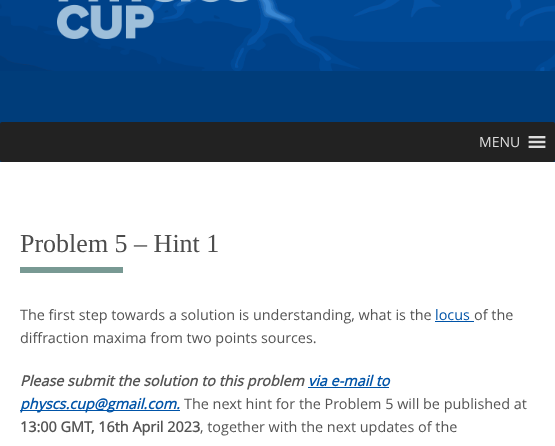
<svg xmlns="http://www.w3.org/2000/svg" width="555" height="446">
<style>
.a{font:14px Open Sans;fill:#ddd}
.b{font:26px Liberation Serif;fill:#4c4c4c}
.c{font:14.4px Open Sans;fill:#545454}
.d{font:14.4px Open Sans;fill:#0054a8}
.e{font:italic bold 14.4px Open Sans;fill:#545454}
.f{font:italic bold 14.4px Open Sans;fill:#0054a8}
.g{font:bold 14.4px Open Sans;fill:#545454}
</style>
<rect width="100%" height="100%" fill="#003d7a"/>
<image href="1.png" x="0" y="0" width="555" height="71"/>
<image href="2.png" x="57" y="0" width="192" height="39"/>
<rect fill="#222" y="122" width="555" height="40" rx="2"/>
<image href="3.png" x="528" y="136" width="18" height="12"/>
<path fill="#fff" d="M0 162h555v284H0z"/>
<path fill="#789993" d="M20 267h103v6H20z"/>
<path fill="#0054a8" d="M435 321h39v1H435z"/>
<path fill="#0054a8" d="M308 387h81v1H308z"/>
<path fill="#0054a8" d="M20 410h160v1H20z"/>
<text class="a" x="479" y="147">MENU</text>
<text class="b" x="20" y="252">Problem 5 – Hint 1</text>
<text class="c" x="20" y="320">The first step towards a solution is understanding, what is the</text>
<text class="d" x="435" y="320">locus</text>
<text class="c" x="474" y="320">of the</text>
<text class="c" x="20" y="343">diffraction maxima from two points sources.</text>
<text class="e" x="20" y="386">Please submit the solution to this problem</text>
<text class="f" x="308" y="386">via e-mail to</text>
<text class="f" x="20" y="409">physcs.cup@gmail.com.</text>
<text class="c" x="184" y="409">The next hint for the Problem 5 will be published at</text>
<text class="g" x="20" y="432">13:00 GMT, 16th April 2023</text>
<text class="c" x="200" y="432">, together with the next updates of the</text>
</svg>
